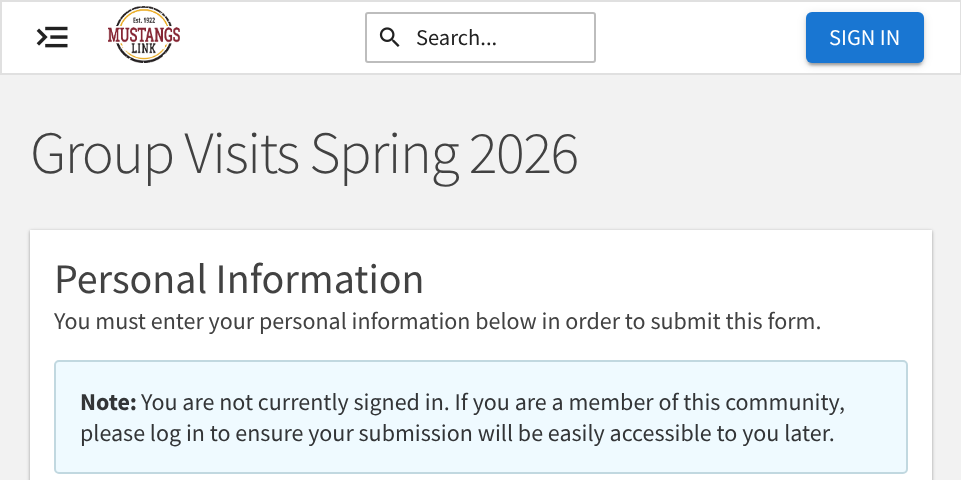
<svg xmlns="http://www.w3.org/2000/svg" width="961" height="480">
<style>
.a{font:22.5px Source Sans Pro;fill:#212121}
.b{font:22.5px Source Sans Pro;fill:#fff}
.c{font:300 60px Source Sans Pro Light;letter-spacing:-1.5px;fill:#424242}
.d{font:42px Source Sans Pro;fill:#424242}
.e{font:24px Source Sans Pro;fill:#424242}
.f{font:bold 24px Source Sans Pro;fill:#333537}
.g{font:24px Source Sans Pro;fill:#333537}
</style>
<rect width="100%" height="100%" fill="#f2f2f2"/>
<path fill="#fff" stroke="#e0e0e0" stroke-width="2" d="M1 1h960v73H1z"/>
<image href="1.png" x="36" y="26" width="32" height="22"/>
<image href="2.png" x="108" y="6" width="72" height="57"/>
<rect fill="none" stroke="#bdbdbd" stroke-width="2" x="366" y="13" width="229" height="49" rx="2"/>
<image href="3.png" x="379" y="27" width="21" height="20"/>
<rect fill="#0000001f" filter="blur(4px)" x="806" y="14" width="118" height="51" rx="6"/>
<rect fill="#00000024" filter="blur(1.5px)" x="806" y="15" width="118" height="51" rx="6"/>
<rect fill="#00000033" filter="blur(1px)" x="809" y="20" width="112" height="45" rx="3"/>
<rect fill="#1976d2" x="806" y="12" width="118" height="51" rx="6"/>
<path fill="#0000003d" filter="blur(1.5px)" d="M30 231h902v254H30z"/>
<path fill="#0000001f" filter="blur(2px)" d="M30 231h902v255H30z"/>
<path fill="#fff" d="M30 230h902v250H30z"/>
<rect fill="#effaff" stroke="#c1d8e0" stroke-width="2" x="55" y="361" width="852" height="112" rx="4"/>
<text class="a" x="416" y="45">Search...</text>
<text class="b" x="829" y="45">SIGN IN</text>
<text class="c" x="30" y="173">Group Visits Spring 2026</text>
<text class="d" x="54" y="293">Personal Information</text>
<text class="e" x="54" y="329">You must enter your personal information below in order to submit this form.</text>
<text class="f" x="80" y="410">Note:</text>
<text class="g" x="141" y="410">You are not currently signed in. If you are a member of this community,</text>
<text class="g" x="80" y="441">please log in to ensure your submission will be easily accessible to you later.</text>
</svg>
